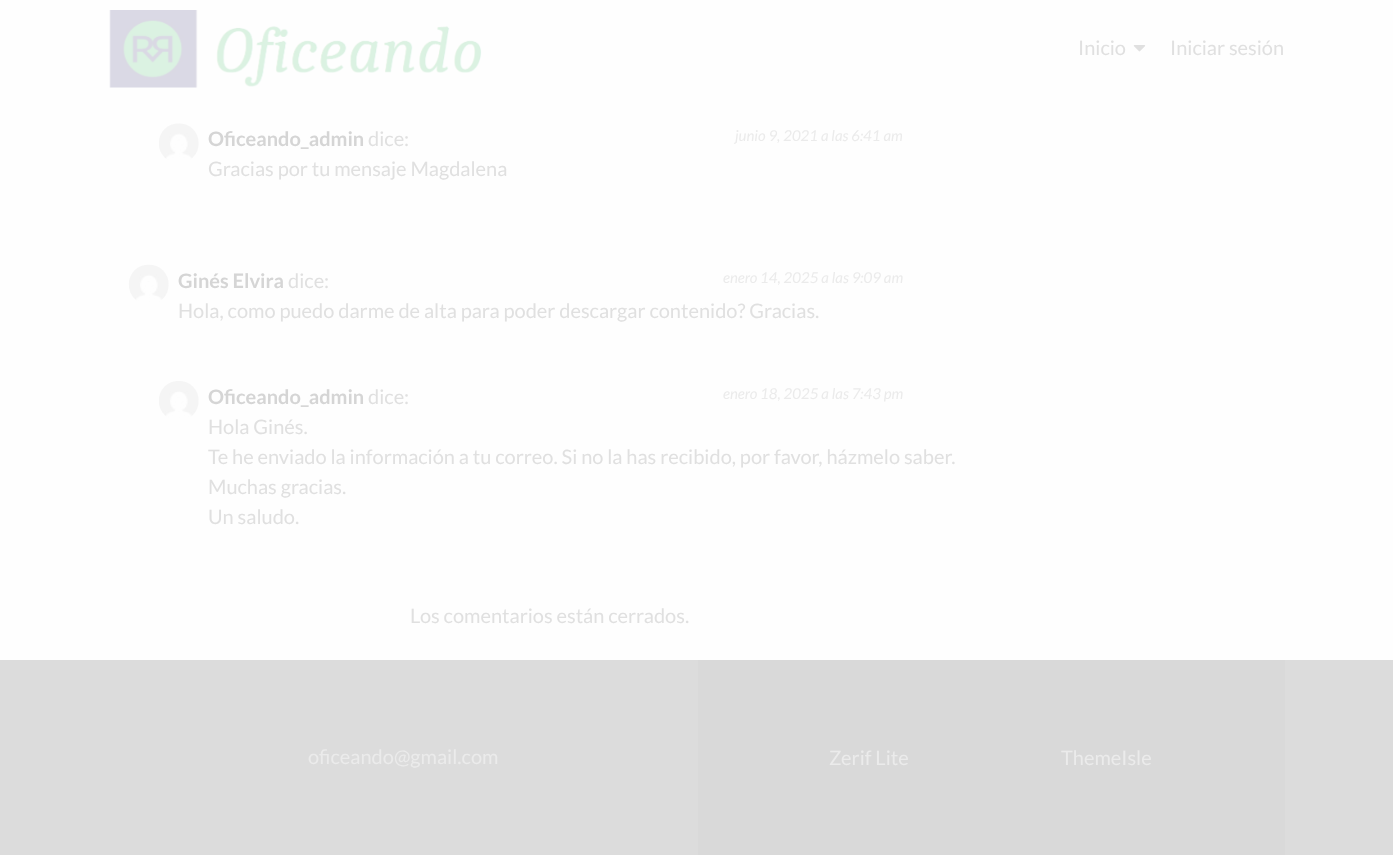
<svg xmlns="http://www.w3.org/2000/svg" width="1393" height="855">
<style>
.a{font:20px Lato;fill:#e0e0e0}
.b{font:bold 20px Lato;fill:#d5d5d5}
.c{font:italic 15px Lato;fill:#ebebeb}
.d{font:20px Lato;fill:#ebebeb}
</style>
<rect width="100%" height="100%" fill="#fefefe"/>
<image href="1.png" x="109" y="10" width="373" height="78"/>
<image href="2.png" x="1133" y="45" width="13" height="7"/>
<image href="3.png" x="159" y="123" width="40" height="37"/>
<image href="4.png" x="128" y="264" width="41" height="38"/>
<image href="5.png" x="159" y="381" width="40" height="37"/>
<path fill="#dcdcdc" d="M0 660h1393v195H0z"/>
<path fill="#d9d9d9" d="M698 660h587v195H698z"/>
<text class="a" x="1078" y="55">Inicio</text>
<text class="a" x="1170" y="55">Iniciar sesión</text>
<text class="b" x="208" y="146">Oficeando_admin</text>
<text class="a" x="368" y="146">dice:</text>
<text class="c" x="735" y="141">junio 9, 2021 a las 6:41 am</text>
<text class="a" x="208" y="176">Gracias por tu mensaje Magdalena</text>
<text class="b" x="178" y="288">Ginés Elvira</text>
<text class="a" x="288" y="288">dice:</text>
<text class="c" x="723" y="283">enero 14, 2025 a las 9:09 am</text>
<text class="a" x="178" y="318">Hola, como puedo darme de alta para poder descargar contenido? Gracias.</text>
<text class="b" x="208" y="404">Oficeando_admin</text>
<text class="a" x="368" y="404">dice:</text>
<text class="c" x="723" y="399">enero 18, 2025 a las 7:43 pm</text>
<text class="a" x="208" y="434">Hola Ginés.</text>
<text class="a" x="208" y="464">Te he enviado la información a tu correo. Si no la has recibido, por favor, házmelo saber.</text>
<text class="a" x="208" y="494">Muchas gracias.</text>
<text class="a" x="208" y="524">Un saludo.</text>
<text class="a" x="410" y="623">Los comentarios están cerrados.</text>
<text class="d" x="308" y="764">oficeando@gmail.com</text>
<text class="d" x="829" y="765">Zerif Lite</text>
<text class="d" x="1061" y="765">ThemeIsle</text>
</svg>
